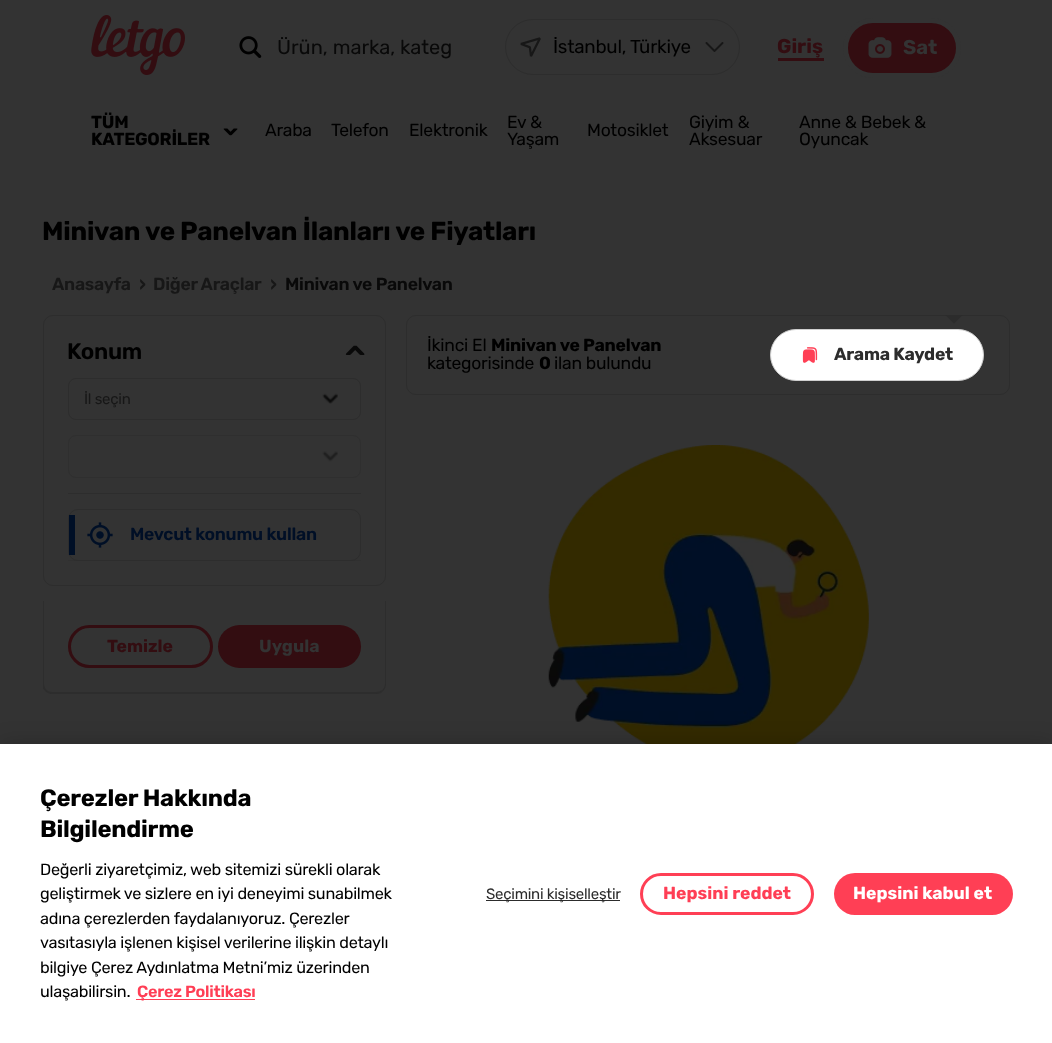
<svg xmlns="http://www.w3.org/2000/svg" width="1052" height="1043">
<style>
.a{font:20px Rubik;fill:#090909}
.b{font:18.75px Rubik;letter-spacing:-0.25px;fill:#000}
.c{font:bold 20px Rubik;fill:#330d11}
.d{font:bold 20px Rubik;fill:#333}
.e{font:bold 17.5px Rubik;letter-spacing:-0.25px;fill:#000}
.f{font:bold 26px Rubik;letter-spacing:-0.25px;fill:#000}
.g{font:17.5px Rubik;letter-spacing:-0.25px;fill:#000}
.h{font:600 17.5px Rubik;letter-spacing:-0.25px;fill:#171717}
.i{font:600 20px Rubik;letter-spacing:-0.25px;fill:#171717}
.j{font:600 17.5px Rubik;letter-spacing:-0.25px;fill:#090909}
.k{font:600 22.5px Rubik;letter-spacing:-0.25px;fill:#000}
.l{font:600 36px Rubik;letter-spacing:-0.25px;fill:#090909}
.m{font:15px Rubik;letter-spacing:-0.25px;fill:#171717}
.n{font:600 17.5px Rubik;letter-spacing:-0.25px;fill:#000f26}
.o{font:bold 17.5px Rubik;fill:#330d11}
.p{font:bold 17.5px Rubik;fill:#333}
.q{font:bold 17.5px Rubik;letter-spacing:-0.25px;fill:#2c2c2c}
.r{font:bold 23.75px Rubik;letter-spacing:-0.25px;fill:#000}
.s{font:16.25px Rubik;letter-spacing:-0.25px;fill:#000}
.t{font:600 16.25px Rubik;letter-spacing:-0.25px;fill:#ff3e55}
.u{font:15px Rubik;letter-spacing:-0.25px;fill:#2c2c2c}
.v{font:bold 17.5px Rubik;fill:#ff3e55}
.w{font:bold 17.5px Rubik;fill:#fff}
</style>
<defs>
<clipPath id="clip1"><path d="M43 315h350v650H43z"/></clipPath>
<clipPath id="clip2"><path d="M406 315h604v650H406z"/></clipPath>
</defs>
<rect width="100%" height="100%" fill="#333"/>
<image href="1.png" x="91" y="15" width="94" height="60"/>
<image href="2.png" x="239" y="36" width="23" height="22"/>
<rect fill="none" stroke="#2d2d2d" x="505.5" y="19.5" width="234" height="55" rx="27.5"/>
<image href="3.png" x="520" y="37" width="21" height="20"/>
<image href="4.png" x="705" y="42" width="19" height="10"/>
<path fill="#330d11" d="M778 58h46v3H778z"/>
<rect fill="#330d11" stroke="#333" stroke-width="5" x="845.5" y="20.5" width="113" height="55" rx="27.5"/>
<image href="5.png" x="868" y="37" width="24" height="21"/>
<rect fill="none" stroke="#2d2d2d" x="43.5" y="315.5" width="342" height="270" rx="9.5"/>
<path fill="#303030" d="M68 560h293v1H68z"/>
<rect fill="none" stroke="#2d2d2d" x="68.5" y="378.5" width="292" height="41" rx="7.5"/>
<image href="6.png" x="322" y="393" width="16" height="11"/>
<rect fill="none" stroke="#2f2f2f" x="68.5" y="435.5" width="292" height="42" rx="7.5"/>
<image href="7.png" x="322" y="451" width="16" height="11"/>
<path fill="#2d2d2d" d="M68 493h293v1H68z"/>
<rect fill="none" stroke="#2d2d2d" x="68.5" y="509.5" width="292" height="51" rx="9.5"/>
<path fill="#000f26" d="M69 515h6v40H69z"/>
<image href="8.png" x="87" y="522" width="26" height="26"/>
<g clip-path="url(#clip1)">
<path fill="#2d2d2d" fill-rule="evenodd" d="M42 601h344v83c0 5-4 10-10 10h-324c-5 0-10-5-10-10zm2 0h341v83c0 5-4 8-9 8h-324c-4 0-8-3-8-8z"/>
</g>
<rect fill="none" stroke="#330d11" stroke-width="3" x="69.5" y="626.5" width="142" height="40" rx="20"/>
<rect fill="#330d11" x="218" y="625" width="143" height="43" rx="21.5"/>
<rect fill="none" stroke="#2d2d2d" x="406.5" y="315.5" width="603" height="79" rx="9.5"/>
<rect fill="#fff" stroke="#cfcfcf" x="770.5" y="329.5" width="213" height="51" rx="25.5"/>
<g clip-path="url(#clip2)">
<path fill="#2c2c2c" d="M954 298.5l12.5 12.5l-12.5 12.5l-12.5-12.5z"/>
</g>
<image href="9.png" x="802" y="347" width="16" height="16"/>
<image href="10.png" x="548" y="445" width="321" height="299"/>
<path fill="#00000033" filter="blur(11px)" d="M0 744h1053v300H0z"/>
<path fill="#fff" d="M0 744h1052v299H0z"/>
<path fill="#ff3e55" d="M136 999h119v1H136z"/>
<path fill="#2c2c2c" d="M486 900h134v1H486z"/>
<rect fill="none" stroke="#ff3f55" stroke-width="3" x="641.5" y="874.5" width="171" height="39" rx="19.5"/>
<rect fill="#ff3f55" x="834" y="873" width="179" height="42" rx="21"/>
<text class="a" x="277" y="54">Ürün, marka, kateg</text>
<text class="b" x="553" y="53">İstanbul, Türkiye</text>
<text class="c" x="777" y="53">Giriş</text>
<text class="d" x="903" y="54">Sat</text>
<text class="e" x="91" y="128">TÜM</text>
<text class="e" x="91" y="145">KATEGORİLER</text>
<text class="f" x="222" y="127" transform="rotate(90 222 127)">›</text>
<text class="g" x="265" y="136">Araba</text>
<text class="g" x="331" y="136">Telefon</text>
<text class="g" x="409" y="136">Elektronik</text>
<text class="g" x="507" y="128">Ev &amp;</text>
<text class="g" x="507" y="145">Yaşam</text>
<text class="g" x="587" y="136">Motosiklet</text>
<text class="g" x="689" y="128">Giyim &amp;</text>
<text class="g" x="689" y="145">Aksesuar</text>
<text class="g" x="799" y="128">Anne &amp; Bebek &amp;</text>
<text class="g" x="799" y="145">Oyuncak</text>
<text class="f" x="42" y="240">Minivan ve Panelvan İlanları ve Fiyatları</text>
<text class="h" x="52" y="290">Anasayfa</text>
<text class="i" x="139" y="291">›</text>
<text class="h" x="153" y="290">Diğer Araçlar</text>
<text class="i" x="270" y="291">›</text>
<text class="j" x="285" y="290">Minivan ve Panelvan</text>
<text class="k" x="67" y="359">Konum</text>
<text class="l" x="367" y="357" transform="rotate(-90 367 357)">›</text>
<text class="m" x="84" y="404">İl seçin</text>
<text class="n" x="130" y="540">Mevcut konumu kullan</text>
<text class="o" x="107" y="652">Temizle</text>
<text class="p" x="259" y="652">Uygula</text>
<text class="g" x="427" y="351">İkinci El</text>
<text class="e" x="491" y="351">Minivan ve Panelvan</text>
<text class="g" x="427" y="369">kategorisinde</text>
<text class="e" x="539" y="369">0</text>
<text class="g" x="554" y="369">ilan bulundu</text>
<text class="q" x="834" y="360">Arama Kaydet</text>
<text class="r" x="40" y="806">Çerezler Hakkında</text>
<text class="r" x="40" y="837">Bilgilendirme</text>
<text class="s" x="40" y="875">Değerli ziyaretçimiz, web sitemizi sürekli olarak</text>
<text class="s" x="40" y="899">geliştirmek ve sizlere en iyi deneyimi sunabilmek</text>
<text class="s" x="40" y="924">adına çerezlerden faydalanıyoruz. Çerezler</text>
<text class="s" x="40" y="948">vasıtasıyla işlenen kişisel verilerine ilişkin detaylı</text>
<text class="s" x="40" y="973">bilgiye Çerez Aydınlatma Metni’miz üzerinden</text>
<text class="s" x="40" y="997">ulaşabilirsin.</text>
<text class="t" x="137" y="997">Çerez Politikası</text>
<text class="u" x="486" y="899">Seçimini kişiselleştir</text>
<text class="v" x="663" y="899">Hepsini reddet</text>
<text class="w" x="853" y="899">Hepsini kabul et</text>
</svg>
